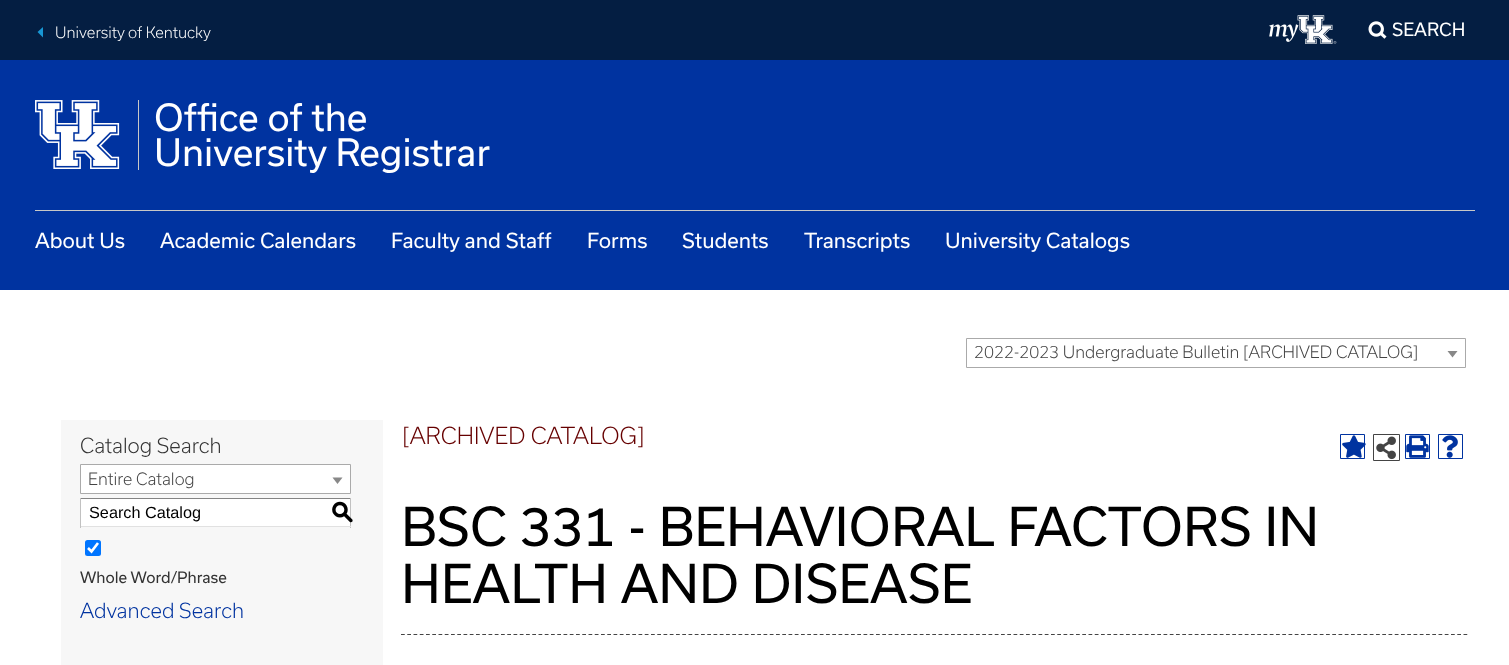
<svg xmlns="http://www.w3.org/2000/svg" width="1509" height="665">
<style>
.a{font:300 15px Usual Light;fill:#fff}
.b{font:17.5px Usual;fill:#fff}
.c{font:36px Usual;fill:#fff}
.d{font:20px Usual;fill:#fff}
.e{font:300 16.25px Usual Light;fill:#444}
.f{font:300 20px Usual Light;fill:#333}
.g{font:16.25px Liberation Sans;fill:#000}
.h{font:500 22.5px 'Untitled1';fill:#000}
.i{font:15px Usual;fill:#333}
.j{font:300 20px Usual Light;fill:#0033a0}
.k{font:300 22.5px Usual Light;fill:#600}
.l{font:51.25px Usual;fill:#000}
</style>
<rect width="100%" height="100%" fill="#fff"/>
<path fill="#041e42" d="M0 0h1509v60H0z"/>
<path fill="#1897d4" d="M43 27v10.5l-5.5-5.5z"/>
<image href="1.png" x="1269" y="15" width="68" height="29"/>
<image href="2.png" x="1368" y="21" width="19" height="18"/>
<path fill="#0033a0" d="M0 60h1509v230H0z"/>
<path fill="#c8c8c7" d="M138 100h1v70H138z"/>
<image href="3.png" x="35" y="100" width="85" height="69"/>
<path fill="#c8c8c7" d="M35 210h1440v1H35z"/>
<path fill="none" stroke="#aaa" d="M966.5 338.5h499v29H966.5z"/>
<path fill="#888" d="M1447.5 351h10l-5 6.5z"/>
<path fill="#f7f7f7" d="M61 420h322v245H61z"/>
<path fill="#fff" stroke="#aaa" d="M80.5 464.5h270v29H80.5z"/>
<path fill="#888" d="M332.5 477.5h10l-5 6.5z"/>
<path fill="#fff" d="M81 499h269v27H81z"/>
<path fill="#848484" d="M80 498h271v1H80z"/>
<path fill="#c1c1c1" d="M350 498h1v30H350z"/>
<path fill="#e1e1e1" d="M80 526h271v1H80z"/>
<path fill="#c1c1c1" d="M80 498h1v30H80z"/>
<rect fill="#0075ff" x="85" y="540" width="16" height="16" rx="2.5"/>
<path fill="none" stroke="#fff" stroke-width="2.6" d="M88 548l3.5 3.5l6.5-8.5"/>
<path fill="none" stroke="#0033a0" d="M1340.5 434.5h24v24H1340.5z"/>
<image href="4.png" x="1342" y="435" width="24" height="23"/>
<path fill="none" stroke="#444" d="M1373.5 434.5h26v26H1373.5z"/>
<image href="5.png" x="1376" y="436" width="20" height="24"/>
<path fill="none" stroke="#0033a0" d="M1405.5 434.5h24v24H1405.5z"/>
<image href="6.png" x="1406" y="435" width="23" height="23"/>
<path fill="none" stroke="#0033a0" d="M1438.5 434.5h24v24H1438.5z"/>
<image href="7.png" x="1442" y="435" width="16" height="23"/>
<path fill="none" stroke="#444" stroke-width="1.2" stroke-dasharray="3.75 2.5" d="M401 634.5h1066.5"/>
<text class="a" x="55" y="38">University of Kentucky</text>
<text class="b" x="1392" y="36">SEARCH</text>
<text class="c" x="154" y="131">Office of the</text>
<text class="c" x="154" y="166">University Registrar</text>
<text class="d" x="35" y="248">About Us</text>
<text class="d" x="160" y="248">Academic Calendars</text>
<text class="d" x="391" y="248">Faculty and Staff</text>
<text class="d" x="587" y="248">Forms</text>
<text class="d" x="682" y="248">Students</text>
<text class="d" x="804" y="248">Transcripts</text>
<text class="d" x="945" y="248">University Catalogs</text>
<text class="e" x="974" y="358">2022-2023 Undergraduate Bulletin [ARCHIVED CATALOG]</text>
<text class="f" x="80" y="453">Catalog Search</text>
<text class="e" x="88" y="485">Entire Catalog</text>
<text class="g" x="89" y="518">Search Catalog</text>
<text class="h" x="331" y="519">S</text>
<text class="i" x="80" y="583">Whole Word/Phrase</text>
<text class="j" x="80" y="618">Advanced Search</text>
<text class="k" x="402" y="444">[ARCHIVED CATALOG]</text>
<text class="l" x="401" y="546">BSC 331 - BEHAVIORAL FACTORS IN</text>
<text class="l" x="401" y="603">HEALTH AND DISEASE</text>
</svg>
